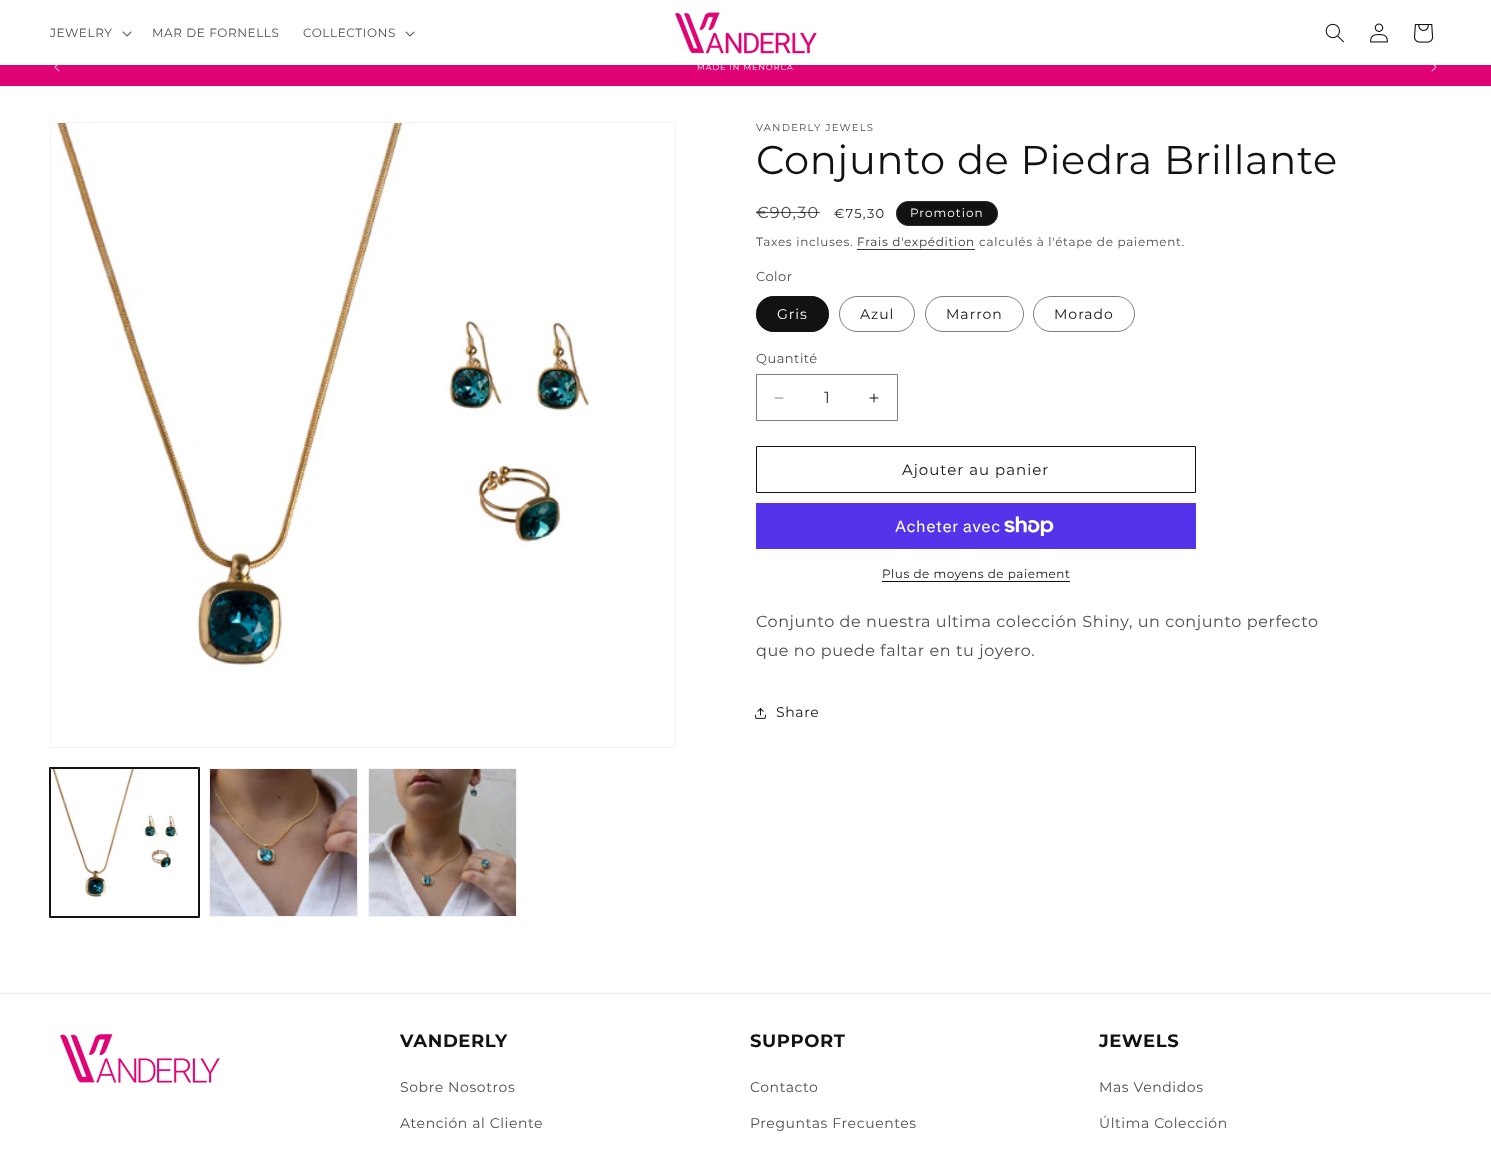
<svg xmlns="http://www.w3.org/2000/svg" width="1491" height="1154">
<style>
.a{font:12px Montserrat;letter-spacing:0.6px;fill:#4d4d4d}
.b{font:8px Montserrat;letter-spacing:1px;fill:#fff}
.c{font:10px Montserrat;letter-spacing:1.25px;fill:#4d4d4d}
.d{font:40px Montserrat;letter-spacing:0.6px;fill:#121212}
.e{font:16px Montserrat;letter-spacing:1.25px;fill:#4d4d4d}
.f{font:13px Montserrat;letter-spacing:1.25px;fill:#121212}
.g{font:12px Montserrat;letter-spacing:1px;fill:#fff}
.h{font:12px Montserrat;letter-spacing:0.7px;fill:#4d4d4d}
.i{font:12px Montserrat;letter-spacing:0.7px;fill:#363636}
.j{font:13px Montserrat;letter-spacing:0.5px;fill:#4d4d4d}
.k{font:14px Montserrat;letter-spacing:1px;fill:#fff}
.l{font:14px Montserrat;letter-spacing:1px;fill:#121212}
.m{font:16px Montserrat;fill:#363636}
.n{font:15px Montserrat;letter-spacing:1px;fill:#121212}
.o{font:16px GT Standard;letter-spacing:0.6px;fill:#fff}
.p{font:12px Montserrat;letter-spacing:0.5px;fill:#121212}
.q{font:16px Montserrat;letter-spacing:0.6px;fill:#4d4d4d}
.r{font:14px Montserrat;letter-spacing:0.6px;fill:#121212}
.s{font:bold 18px Montserrat;letter-spacing:0.6px;fill:#121212}
.t{font:14px Montserrat;letter-spacing:0.6px;fill:#4d4d4d}
</style>
<rect width="100%" height="100%" fill="#fff"/>
<image href="1.png" x="122" y="31" width="10" height="6"/>
<image href="1.png" x="405" y="31" width="10" height="6"/>
<image href="2.png" x="675" y="12" width="142" height="42"/>
<image href="3.png" x="1325" y="23" width="19" height="20"/>
<image href="4.png" x="1370" y="23" width="18" height="20"/>
<image href="5.png" x="1414" y="24" width="20" height="19"/>
<path fill="#e00375" d="M0 65h1491v21H0z"/>
<image href="6.png" x="54" y="65" width="6" height="7"/>
<image href="7.png" x="1431" y="65" width="6" height="7"/>
<path fill="none" stroke="#f3f3f3" d="M50.5 122.5h625v625H50.5z"/>
<image href="8.png" x="51" y="123" width="539" height="545"/>
<path fill="none" stroke="#121212" d="M49.5 767.5h150v150H49.5z"/>
<path fill="none" stroke="#121212" d="M50.5 768.5h148v148H50.5z"/>
<image href="9.png" x="51" y="769" width="128" height="131"/>
<path fill="none" stroke="#f3f3f3" d="M209.5 768.5h148v148H209.5z"/>
<image href="10.png" x="210" y="769" width="147" height="147"/>
<path fill="none" stroke="#f3f3f3" d="M368.5 768.5h148v148H368.5z"/>
<image href="11.png" x="369" y="769" width="147" height="147"/>
<rect fill="#121212" x="896" y="201" width="102" height="25" rx="12.5"/>
<rect fill="none" stroke="#ffffff1a" x="896.5" y="201.5" width="101" height="24" rx="12"/>
<path fill="#363636" d="M857 249h118v1H857z"/>
<rect fill="#121212" x="756" y="296" width="73" height="36" rx="18"/>
<rect fill="none" stroke="#1212128c" x="756.5" y="296.5" width="72" height="35" rx="17.5"/>
<rect fill="none" stroke="#7d7d7d" x="839.5" y="296.5" width="75" height="35" rx="17.5"/>
<rect fill="none" stroke="#7d7d7d" x="925.5" y="296.5" width="98" height="35" rx="17.5"/>
<rect fill="none" stroke="#7d7d7d" x="1033.5" y="296.5" width="101" height="35" rx="17.5"/>
<image href="12.png" x="774" y="397" width="10" height="2"/>
<image href="13.png" x="869" y="393" width="10" height="10"/>
<path fill="none" stroke="#7d7d7d" d="M756.5 374.5h141v46H756.5z"/>
<path fill="none" stroke="#121212" d="M756.5 446.5h439v46H756.5z"/>
<path fill="#5433eb" d="M756 503h440v46H756z"/>
<image href="14.png" x="1004" y="516" width="50" height="20"/>
<path fill="#121212" d="M882 581h188v1H882z"/>
<image href="15.png" x="755" y="708" width="11" height="11"/>
<path fill="#ececec" d="M0 993h1491v1H0z"/>
<image href="16.png" x="60" y="1034" width="160" height="49"/>
<text class="a" x="50" y="37">JEWELRY</text>
<text class="a" x="152" y="37">MAR DE FORNELLS</text>
<text class="a" x="303" y="37">COLLECTIONS</text>
<text class="b" x="697" y="70">MADE IN MENORCA</text>
<text class="c" x="756" y="131">VANDERLY JEWELS</text>
<text class="d" x="756" y="174">Conjunto de Piedra Brillante</text>
<text class="e" x="756" y="218">€90,30</text>
<path fill="#121212bf" d="M756 212h64v1H756z"/>
<text class="f" x="834" y="218">€75,30</text>
<text class="g" x="910" y="217">Promotion</text>
<text class="h" x="756" y="246">Taxes incluses.</text>
<text class="i" x="857" y="246">Frais d'expédition</text>
<text class="h" x="979" y="246">calculés à l'étape de paiement.</text>
<text class="j" x="756" y="281">Color</text>
<text class="k" x="777" y="319">Gris</text>
<text class="l" x="860" y="319">Azul</text>
<text class="l" x="946" y="319">Marron</text>
<text class="l" x="1054" y="319">Morado</text>
<text class="j" x="756" y="363">Quantité</text>
<text class="m" x="824" y="403">1</text>
<text class="n" x="902" y="475">Ajouter au panier</text>
<text class="o" x="895" y="532">Acheter avec</text>
<text class="p" x="882" y="578">Plus de moyens de paiement</text>
<text class="q" x="756" y="627">Conjunto de nuestra ultima colección Shiny, un conjunto perfecto</text>
<text class="q" x="756" y="656">que no puede faltar en tu joyero.</text>
<text class="r" x="776" y="717">Share</text>
<text class="s" x="400" y="1047">VANDERLY</text>
<text class="t" x="400" y="1092">Sobre Nosotros</text>
<text class="t" x="400" y="1128">Atención al Cliente</text>
<text class="s" x="750" y="1047">SUPPORT</text>
<text class="t" x="750" y="1092">Contacto</text>
<text class="t" x="750" y="1128">Preguntas Frecuentes</text>
<text class="s" x="1099" y="1047">JEWELS</text>
<text class="t" x="1099" y="1092">Mas Vendidos</text>
<text class="t" x="1099" y="1128">Última Colección</text>
</svg>
